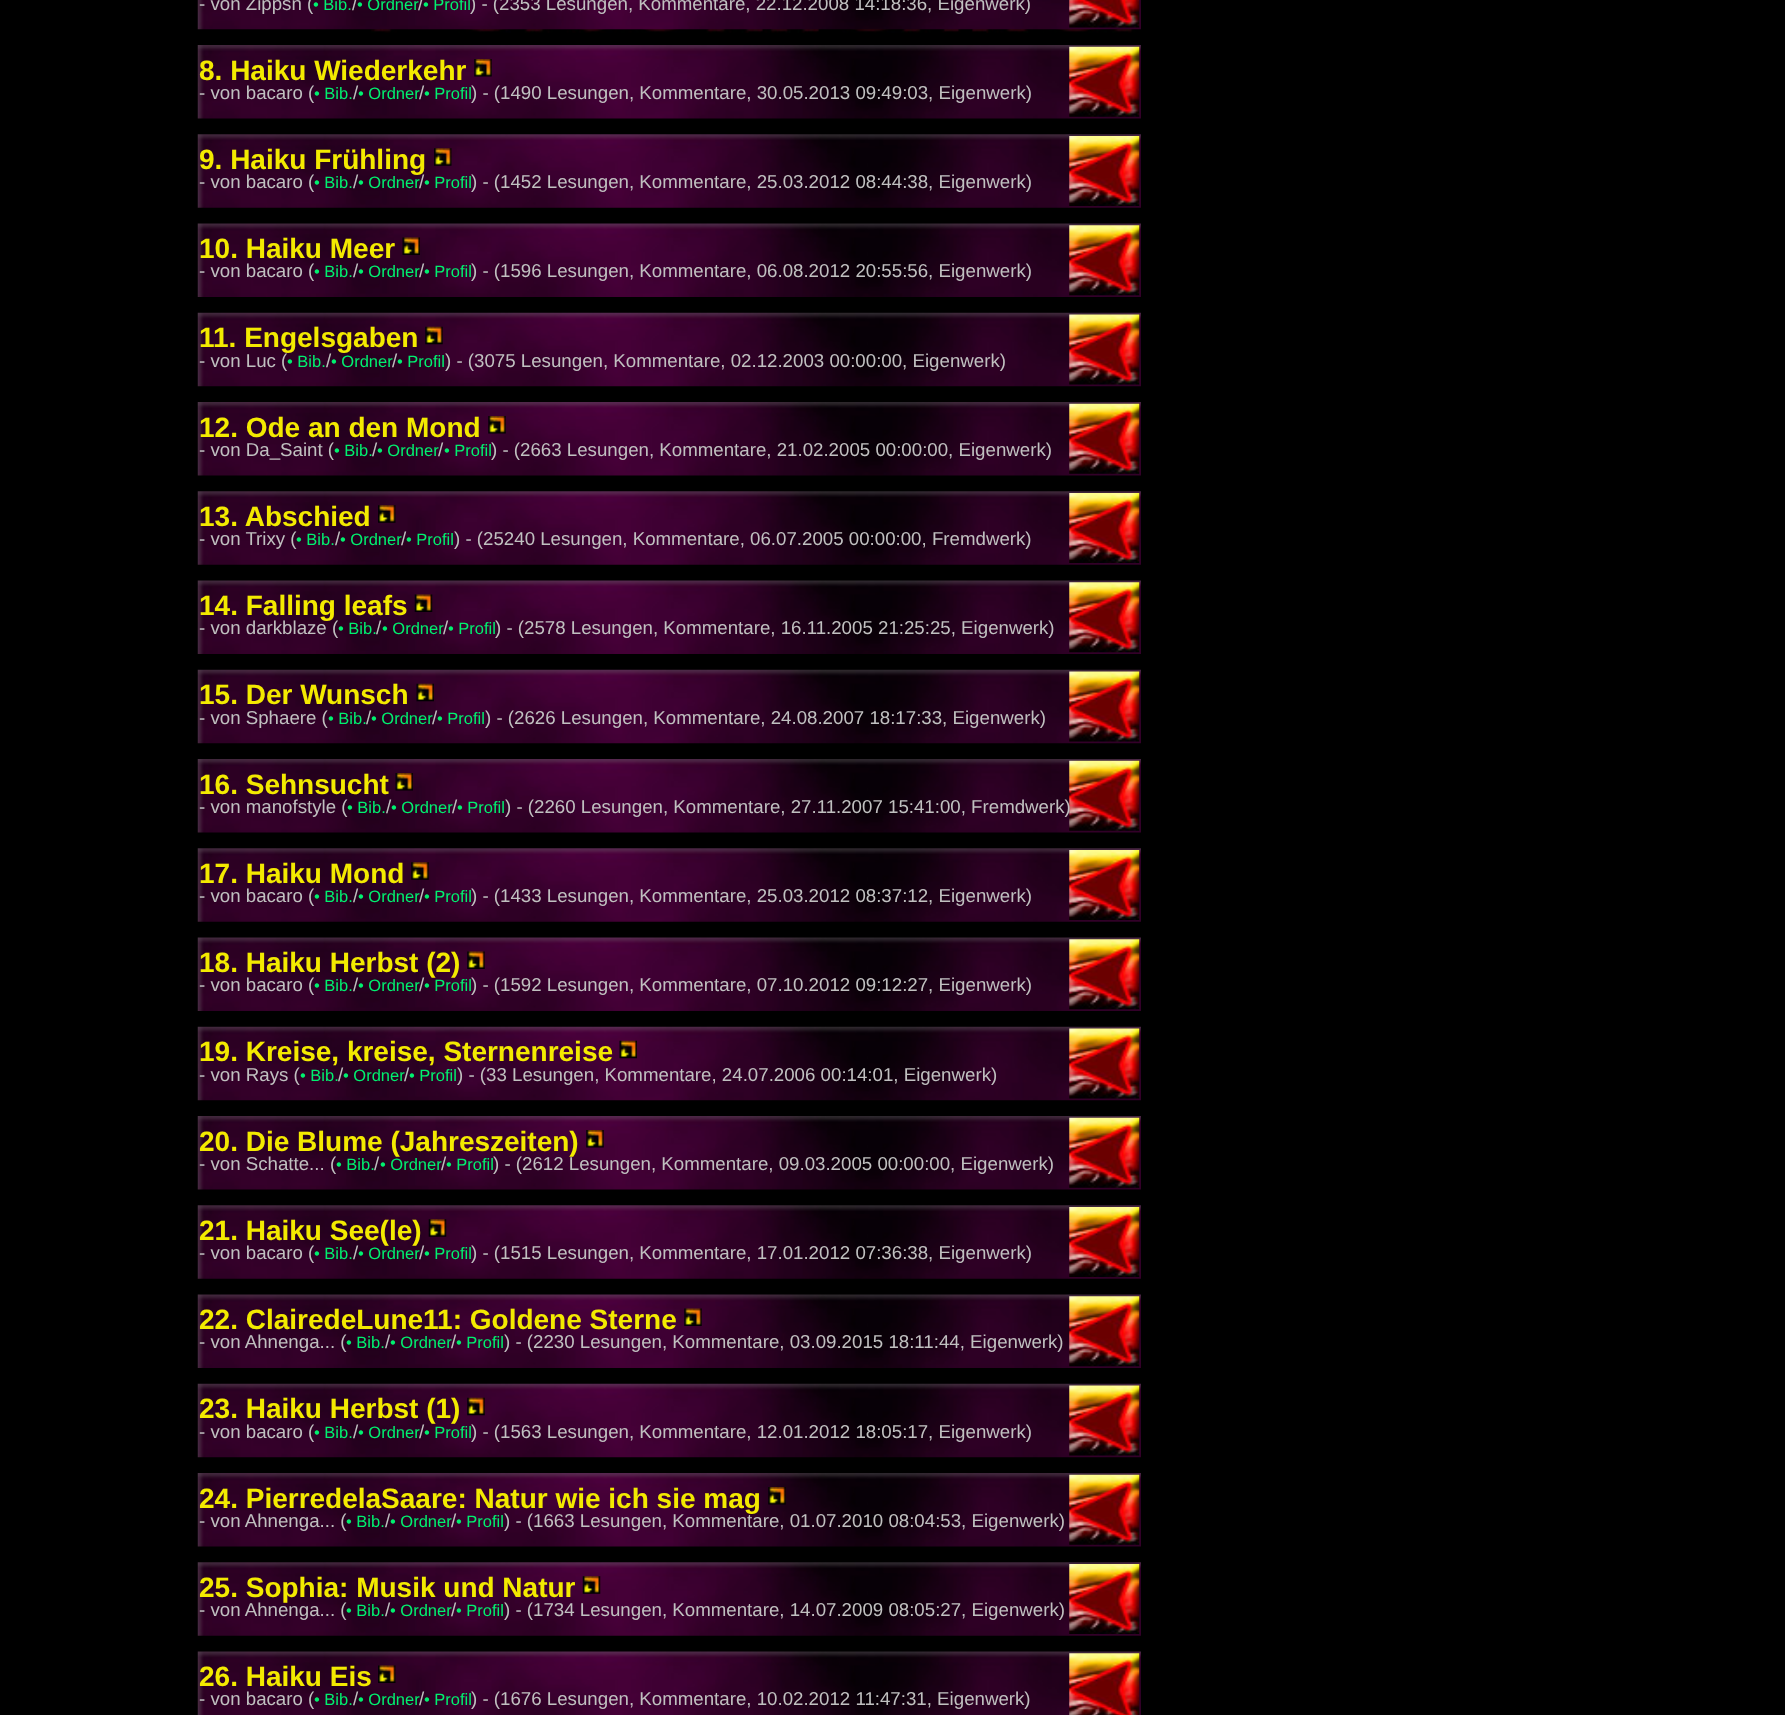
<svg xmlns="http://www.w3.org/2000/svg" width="1785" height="1715">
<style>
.a{font:18.7px Liberation Sans;fill:#c0c0c0}
.b{font:16.5px Liberation Sans;fill:#00f06f}
.c{font:bold 28px Liberation Sans;fill:#f3ea00}
</style>
<rect width="100%" height="100%" fill="#000"/>
<image href="1.png" x="371" y="29" width="765" height="4"/>
<image href="2.png" x="197" y="0" width="944" height="30"/>
<image href="3.png" x="1069" y="0" width="71" height="28"/>
<image href="4.png" x="197" y="45" width="944" height="74"/>
<image href="5.png" x="474" y="59" width="18" height="18"/>
<image href="6.png" x="1069" y="46" width="71" height="71"/>
<image href="7.png" x="197" y="134" width="944" height="74"/>
<image href="8.png" x="434" y="148" width="18" height="18"/>
<image href="9.png" x="1069" y="136" width="71" height="70"/>
<image href="10.png" x="197" y="223" width="944" height="74"/>
<image href="11.png" x="402" y="237" width="18" height="18"/>
<image href="12.png" x="1069" y="225" width="71" height="71"/>
<image href="13.png" x="197" y="312" width="944" height="75"/>
<image href="14.png" x="425" y="326" width="18" height="19"/>
<image href="15.png" x="1069" y="314" width="71" height="71"/>
<image href="4.png" x="197" y="402" width="944" height="74"/>
<image href="16.png" x="488" y="416" width="18" height="18"/>
<image href="6.png" x="1069" y="403" width="71" height="71"/>
<image href="7.png" x="197" y="491" width="944" height="74"/>
<image href="17.png" x="378" y="505" width="18" height="18"/>
<image href="9.png" x="1069" y="493" width="71" height="70"/>
<image href="10.png" x="197" y="580" width="944" height="74"/>
<image href="18.png" x="414" y="594" width="19" height="18"/>
<image href="12.png" x="1069" y="582" width="71" height="71"/>
<image href="19.png" x="197" y="669" width="944" height="75"/>
<image href="20.png" x="416" y="683" width="18" height="19"/>
<image href="21.png" x="1069" y="671" width="71" height="71"/>
<image href="22.png" x="197" y="759" width="944" height="74"/>
<image href="23.png" x="395" y="773" width="18" height="18"/>
<image href="24.png" x="1069" y="760" width="71" height="71"/>
<image href="7.png" x="197" y="848" width="944" height="74"/>
<image href="25.png" x="411" y="862" width="18" height="18"/>
<image href="9.png" x="1069" y="850" width="71" height="70"/>
<image href="10.png" x="197" y="937" width="944" height="74"/>
<image href="26.png" x="467" y="951" width="18" height="18"/>
<image href="12.png" x="1069" y="939" width="71" height="71"/>
<image href="13.png" x="197" y="1026" width="944" height="75"/>
<image href="27.png" x="619" y="1040" width="18" height="19"/>
<image href="15.png" x="1069" y="1028" width="71" height="71"/>
<image href="4.png" x="197" y="1116" width="944" height="74"/>
<image href="28.png" x="586" y="1130" width="18" height="18"/>
<image href="6.png" x="1069" y="1117" width="71" height="71"/>
<image href="7.png" x="197" y="1205" width="944" height="74"/>
<image href="29.png" x="428" y="1219" width="19" height="18"/>
<image href="9.png" x="1069" y="1207" width="71" height="70"/>
<image href="10.png" x="197" y="1294" width="944" height="74"/>
<image href="30.png" x="684" y="1308" width="18" height="18"/>
<image href="12.png" x="1069" y="1296" width="71" height="71"/>
<image href="13.png" x="197" y="1383" width="944" height="75"/>
<image href="31.png" x="467" y="1397" width="18" height="19"/>
<image href="15.png" x="1069" y="1385" width="71" height="71"/>
<image href="4.png" x="197" y="1473" width="944" height="74"/>
<image href="32.png" x="768" y="1487" width="18" height="18"/>
<image href="6.png" x="1069" y="1474" width="71" height="71"/>
<image href="7.png" x="197" y="1562" width="944" height="74"/>
<image href="33.png" x="582" y="1576" width="19" height="18"/>
<image href="9.png" x="1069" y="1564" width="71" height="70"/>
<image href="34.png" x="197" y="1651" width="944" height="64"/>
<image href="35.png" x="378" y="1665" width="18" height="18"/>
<image href="36.png" x="1069" y="1653" width="71" height="62"/>
<text class="a" x="199" y="10">- von Zippsn (</text>
<text class="b" x="313" y="10">• Bib.</text>
<text class="a" x="352" y="10">/</text>
<text class="b" x="357" y="10">• Ordner</text>
<text class="a" x="418" y="10">/</text>
<text class="b" x="423" y="10">• Profil</text>
<text class="a" x="470" y="10">) - (2353 Lesungen, Kommentare, 22.12.2008 14:18:36, Eigenwerk)</text>
<text class="c" x="199" y="80">8. Haiku Wiederkehr</text>
<text class="a" x="199" y="99">- von bacaro (</text>
<text class="b" x="314" y="99">• Bib.</text>
<text class="a" x="353" y="99">/</text>
<text class="b" x="358" y="99">• Ordner</text>
<text class="a" x="419" y="99">/</text>
<text class="b" x="424" y="99">• Profil</text>
<text class="a" x="471" y="99">) - (1490 Lesungen, Kommentare, 30.05.2013 09:49:03, Eigenwerk)</text>
<text class="c" x="199" y="169">9. Haiku Frühling</text>
<text class="a" x="199" y="188">- von bacaro (</text>
<text class="b" x="314" y="188">• Bib.</text>
<text class="a" x="353" y="188">/</text>
<text class="b" x="358" y="188">• Ordner</text>
<text class="a" x="419" y="188">/</text>
<text class="b" x="424" y="188">• Profil</text>
<text class="a" x="471" y="188">) - (1452 Lesungen, Kommentare, 25.03.2012 08:44:38, Eigenwerk)</text>
<text class="c" x="199" y="258">10. Haiku Meer</text>
<text class="a" x="199" y="277">- von bacaro (</text>
<text class="b" x="314" y="277">• Bib.</text>
<text class="a" x="353" y="277">/</text>
<text class="b" x="358" y="277">• Ordner</text>
<text class="a" x="419" y="277">/</text>
<text class="b" x="424" y="277">• Profil</text>
<text class="a" x="471" y="277">) - (1596 Lesungen, Kommentare, 06.08.2012 20:55:56, Eigenwerk)</text>
<text class="c" x="199" y="347">11. Engelsgaben</text>
<text class="a" x="199" y="367">- von Luc (</text>
<text class="b" x="287" y="367">• Bib.</text>
<text class="a" x="326" y="367">/</text>
<text class="b" x="331" y="367">• Ordner</text>
<text class="a" x="392" y="367">/</text>
<text class="b" x="397" y="367">• Profil</text>
<text class="a" x="445" y="367">) - (3075 Lesungen, Kommentare, 02.12.2003 00:00:00, Eigenwerk)</text>
<text class="c" x="199" y="437">12. Ode an den Mond</text>
<text class="a" x="199" y="456">- von Da_Saint (</text>
<text class="b" x="334" y="456">• Bib.</text>
<text class="a" x="372" y="456">/</text>
<text class="b" x="377" y="456">• Ordner</text>
<text class="a" x="438" y="456">/</text>
<text class="b" x="444" y="456">• Profil</text>
<text class="a" x="491" y="456">) - (2663 Lesungen, Kommentare, 21.02.2005 00:00:00, Eigenwerk)</text>
<text class="c" x="199" y="526">13. Abschied</text>
<text class="a" x="199" y="545">- von Trixy (</text>
<text class="b" x="296" y="545">• Bib.</text>
<text class="a" x="335" y="545">/</text>
<text class="b" x="340" y="545">• Ordner</text>
<text class="a" x="401" y="545">/</text>
<text class="b" x="406" y="545">• Profil</text>
<text class="a" x="454" y="545">) - (25240 Lesungen, Kommentare, 06.07.2005 00:00:00, Fremdwerk)</text>
<text class="c" x="199" y="615">14. Falling leafs</text>
<text class="a" x="199" y="634">- von darkblaze (</text>
<text class="b" x="338" y="634">• Bib.</text>
<text class="a" x="376" y="634">/</text>
<text class="b" x="382" y="634">• Ordner</text>
<text class="a" x="443" y="634">/</text>
<text class="b" x="448" y="634">• Profil</text>
<text class="a" x="495" y="634">) - (2578 Lesungen, Kommentare, 16.11.2005 21:25:25, Eigenwerk)</text>
<text class="c" x="199" y="704">15. Der Wunsch</text>
<text class="a" x="199" y="724">- von Sphaere (</text>
<text class="b" x="328" y="724">• Bib.</text>
<text class="a" x="366" y="724">/</text>
<text class="b" x="371" y="724">• Ordner</text>
<text class="a" x="432" y="724">/</text>
<text class="b" x="437" y="724">• Profil</text>
<text class="a" x="485" y="724">) - (2626 Lesungen, Kommentare, 24.08.2007 18:17:33, Eigenwerk)</text>
<text class="c" x="199" y="794">16. Sehnsucht</text>
<text class="a" x="199" y="813">- von manofstyle (</text>
<text class="b" x="347" y="813">• Bib.</text>
<text class="a" x="386" y="813">/</text>
<text class="b" x="391" y="813">• Ordner</text>
<text class="a" x="452" y="813">/</text>
<text class="b" x="457" y="813">• Profil</text>
<text class="a" x="505" y="813">) - (2260 Lesungen, Kommentare, 27.11.2007 15:41:00, Fremdwerk)</text>
<text class="c" x="199" y="883">17. Haiku Mond</text>
<text class="a" x="199" y="902">- von bacaro (</text>
<text class="b" x="314" y="902">• Bib.</text>
<text class="a" x="353" y="902">/</text>
<text class="b" x="358" y="902">• Ordner</text>
<text class="a" x="419" y="902">/</text>
<text class="b" x="424" y="902">• Profil</text>
<text class="a" x="471" y="902">) - (1433 Lesungen, Kommentare, 25.03.2012 08:37:12, Eigenwerk)</text>
<text class="c" x="199" y="972">18. Haiku Herbst (2)</text>
<text class="a" x="199" y="991">- von bacaro (</text>
<text class="b" x="314" y="991">• Bib.</text>
<text class="a" x="353" y="991">/</text>
<text class="b" x="358" y="991">• Ordner</text>
<text class="a" x="419" y="991">/</text>
<text class="b" x="424" y="991">• Profil</text>
<text class="a" x="471" y="991">) - (1592 Lesungen, Kommentare, 07.10.2012 09:12:27, Eigenwerk)</text>
<text class="c" x="199" y="1061">19. Kreise, kreise, Sternenreise</text>
<text class="a" x="199" y="1081">- von Rays (</text>
<text class="b" x="300" y="1081">• Bib.</text>
<text class="a" x="338" y="1081">/</text>
<text class="b" x="343" y="1081">• Ordner</text>
<text class="a" x="404" y="1081">/</text>
<text class="b" x="409" y="1081">• Profil</text>
<text class="a" x="457" y="1081">) - (33 Lesungen, Kommentare, 24.07.2006 00:14:01, Eigenwerk)</text>
<text class="c" x="199" y="1151">20. Die Blume (Jahreszeiten)</text>
<text class="a" x="199" y="1170">- von Schatte... (</text>
<text class="b" x="336" y="1170">• Bib.</text>
<text class="a" x="374" y="1170">/</text>
<text class="b" x="380" y="1170">• Ordner</text>
<text class="a" x="441" y="1170">/</text>
<text class="b" x="446" y="1170">• Profil</text>
<text class="a" x="493" y="1170">) - (2612 Lesungen, Kommentare, 09.03.2005 00:00:00, Eigenwerk)</text>
<text class="c" x="199" y="1240">21. Haiku See(le)</text>
<text class="a" x="199" y="1259">- von bacaro (</text>
<text class="b" x="314" y="1259">• Bib.</text>
<text class="a" x="353" y="1259">/</text>
<text class="b" x="358" y="1259">• Ordner</text>
<text class="a" x="419" y="1259">/</text>
<text class="b" x="424" y="1259">• Profil</text>
<text class="a" x="471" y="1259">) - (1515 Lesungen, Kommentare, 17.01.2012 07:36:38, Eigenwerk)</text>
<text class="c" x="199" y="1329">22. ClairedeLune11: Goldene Sterne</text>
<text class="a" x="199" y="1348">- von Ahnenga... (</text>
<text class="b" x="346" y="1348">• Bib.</text>
<text class="a" x="385" y="1348">/</text>
<text class="b" x="390" y="1348">• Ordner</text>
<text class="a" x="451" y="1348">/</text>
<text class="b" x="456" y="1348">• Profil</text>
<text class="a" x="504" y="1348">) - (2230 Lesungen, Kommentare, 03.09.2015 18:11:44, Eigenwerk)</text>
<text class="c" x="199" y="1418">23. Haiku Herbst (1)</text>
<text class="a" x="199" y="1438">- von bacaro (</text>
<text class="b" x="314" y="1438">• Bib.</text>
<text class="a" x="353" y="1438">/</text>
<text class="b" x="358" y="1438">• Ordner</text>
<text class="a" x="419" y="1438">/</text>
<text class="b" x="424" y="1438">• Profil</text>
<text class="a" x="471" y="1438">) - (1563 Lesungen, Kommentare, 12.01.2012 18:05:17, Eigenwerk)</text>
<text class="c" x="199" y="1508">24. PierredelaSaare: Natur wie ich sie mag</text>
<text class="a" x="199" y="1527">- von Ahnenga... (</text>
<text class="b" x="346" y="1527">• Bib.</text>
<text class="a" x="385" y="1527">/</text>
<text class="b" x="390" y="1527">• Ordner</text>
<text class="a" x="451" y="1527">/</text>
<text class="b" x="456" y="1527">• Profil</text>
<text class="a" x="504" y="1527">) - (1663 Lesungen, Kommentare, 01.07.2010 08:04:53, Eigenwerk)</text>
<text class="c" x="199" y="1597">25. Sophia: Musik und Natur</text>
<text class="a" x="199" y="1616">- von Ahnenga... (</text>
<text class="b" x="346" y="1616">• Bib.</text>
<text class="a" x="385" y="1616">/</text>
<text class="b" x="390" y="1616">• Ordner</text>
<text class="a" x="451" y="1616">/</text>
<text class="b" x="456" y="1616">• Profil</text>
<text class="a" x="504" y="1616">) - (1734 Lesungen, Kommentare, 14.07.2009 08:05:27, Eigenwerk)</text>
<text class="c" x="199" y="1686">26. Haiku Eis</text>
<text class="a" x="199" y="1705">- von bacaro (</text>
<text class="b" x="314" y="1705">• Bib.</text>
<text class="a" x="353" y="1705">/</text>
<text class="b" x="358" y="1705">• Ordner</text>
<text class="a" x="419" y="1705">/</text>
<text class="b" x="424" y="1705">• Profil</text>
<text class="a" x="471" y="1705">) - (1676 Lesungen, Kommentare, 10.02.2012 11:47:31, Eigenwerk)</text>
</svg>
